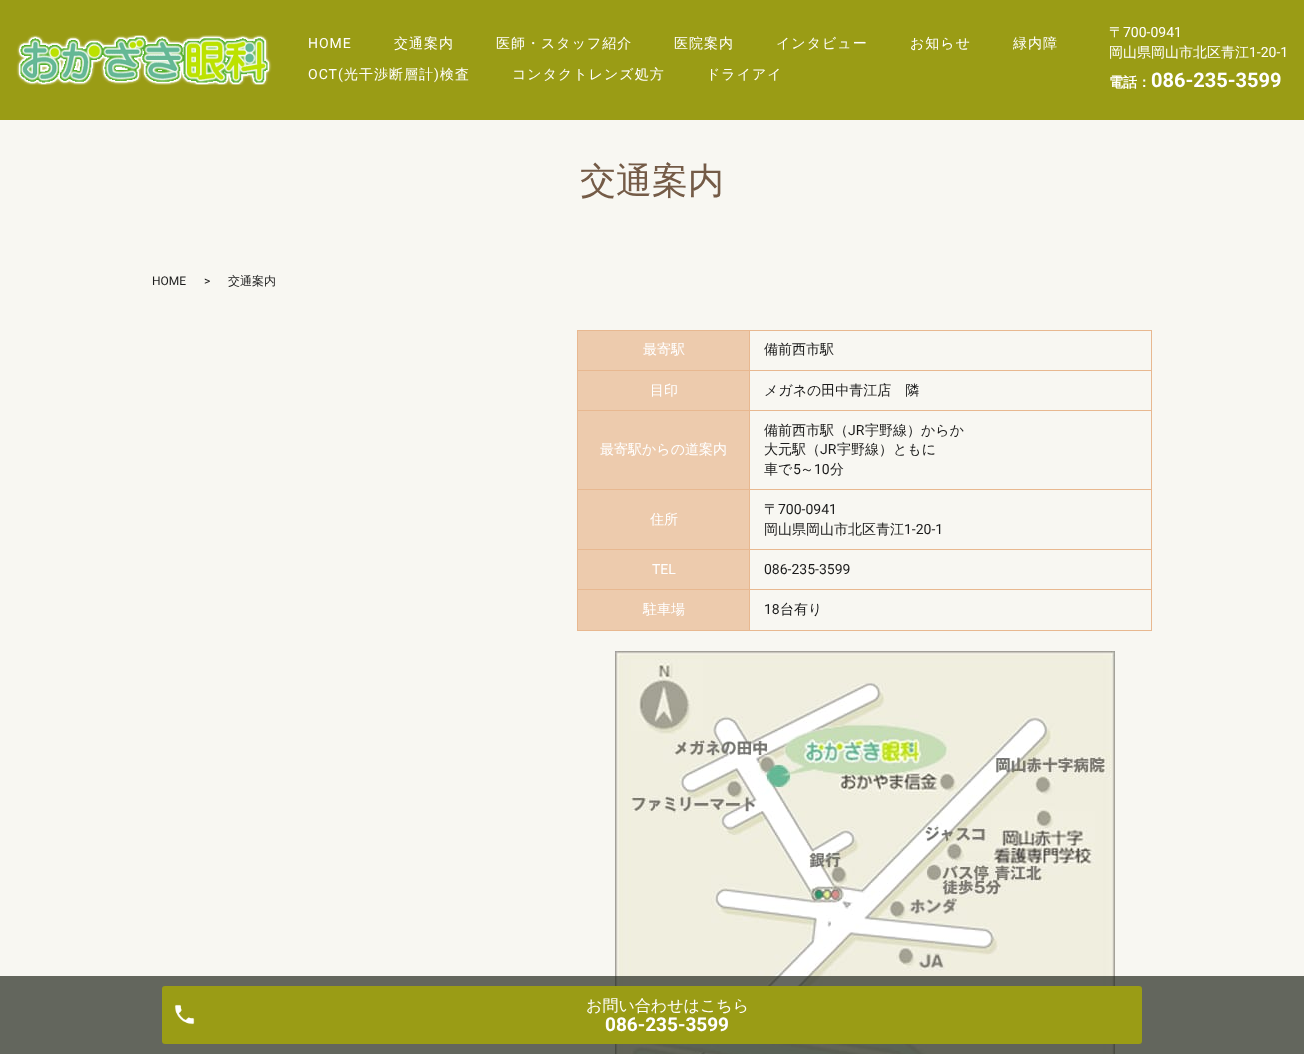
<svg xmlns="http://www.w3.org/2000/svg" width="1304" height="1054">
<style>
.a{font:14px Roboto;letter-spacing:1px;fill:#fff}
.b{font:500 14px WenQuanYi Zen Hei;letter-spacing:1px;fill:#fff}
.c{font:500 14px WenQuanYi Zen Hei;fill:#fff}
.d{font:14px Roboto;fill:#fff}
.e{font:bold 14px WenQuanYi Zen Hei;fill:#fff}
.f{font:bold 20px Roboto;fill:#fff}
.g{font:500 36px WenQuanYi Zen Hei;fill:#745b47}
.h{font:12px Roboto;fill:#1b1b1b}
.i{font:500 12px WenQuanYi Zen Hei;fill:#1b1b1b}
.j{font:500 14px WenQuanYi Zen Hei;fill:#1b1b1b}
.k{font:14px Roboto;fill:#1b1b1b}
.l{font:500 16px WenQuanYi Zen Hei;fill:#fff}
.m{font:bold 19px Roboto;fill:#fff}
</style>
<rect width="100%" height="100%" fill="#f8f7f2"/>
<path fill="#9a9c15" d="M0 0h1304v120H0z"/>
<image href="1.png" x="16" y="35" width="256" height="50"/>
<path fill="#edcbad" d="M578 331h171v39H578z"/>
<path fill="#e8b890" d="M749 330h403v1H749z"/>
<path fill="#e8b890" d="M749 370h403v1H749z"/>
<path fill="#e8b890" d="M749 410h403v1H749z"/>
<path fill="#e8b890" d="M749 489h403v1H749z"/>
<path fill="#e8b890" d="M749 549h403v1H749z"/>
<path fill="#e8b890" d="M749 589h403v1H749z"/>
<path fill="#e8b890" d="M1151 589h1v42H1151z"/>
<path fill="#e8b890" d="M749 630h403v1H749z"/>
<path fill="#e8b890" d="M749 589h1v42H749z"/>
<path fill="#e8b890" d="M577 589h173v1H577z"/>
<path fill="#e8b890" d="M749 549h1v41H749z"/>
<path fill="#e8b890" d="M577 549h173v1H577z"/>
<path fill="#e8b890" d="M749 489h1v61H749z"/>
<path fill="#e8b890" d="M577 489h173v1H577z"/>
<path fill="#e8b890" d="M749 410h1v80H749z"/>
<path fill="#e8b890" d="M577 410h173v1H577z"/>
<path fill="#e8b890" d="M749 370h1v41H749z"/>
<path fill="#e8b890" d="M577 370h173v1H577z"/>
<path fill="#e8b890" d="M749 330h1v41H749z"/>
<path fill="#e8b890" d="M577 330h173v1H577z"/>
<path fill="#e8b890" d="M577 630h173v1H577z"/>
<path fill="#e8b890" d="M577 589h1v42H577z"/>
<path fill="#e8b890" d="M577 549h1v41H577z"/>
<path fill="#e8b890" d="M577 489h1v61H577z"/>
<path fill="#e8b890" d="M577 410h1v80H577z"/>
<path fill="#e8b890" d="M577 370h1v41H577z"/>
<path fill="#e8b890" d="M577 330h1v41H577z"/>
<path fill="#e8b890" d="M1151 549h1v41H1151z"/>
<path fill="#e8b890" d="M1151 489h1v61H1151z"/>
<path fill="#e8b890" d="M1151 410h1v80H1151z"/>
<path fill="#e8b890" d="M1151 370h1v41H1151z"/>
<path fill="#e8b890" d="M1151 330h1v41H1151z"/>
<path fill="#edcbad" d="M578 371h171v39H578z"/>
<path fill="#edcbad" d="M578 411h171v78H578z"/>
<path fill="#edcbad" d="M578 490h171v59H578z"/>
<path fill="#edcbad" d="M578 550h171v39H578z"/>
<path fill="#edcbad" d="M578 590h171v40H578z"/>
<image href="2.png" x="615" y="651" width="500" height="403"/>
<path fill="#23281eb3" d="M0 976h1304v78H0z"/>
<rect fill="#9a9c15" x="162" y="986" width="980" height="58" rx="3"/>
<image href="3.png" x="174" y="1004" width="21" height="21"/>
<text class="a" x="308" y="48">HOME</text>
<text class="b" x="394" y="48">交通案内</text>
<text class="b" x="496" y="48">医師・スタッフ紹介</text>
<text class="b" x="674" y="48">医院案内</text>
<text class="b" x="776" y="48">インタビュー</text>
<text class="b" x="910" y="48">お知らせ</text>
<text class="b" x="1013" y="48">緑内障</text>
<text class="a" x="308" y="79">OCT(</text>
<text class="b" x="344" y="79">光干渉断層計</text>
<text class="a" x="434" y="79">)</text>
<text class="b" x="440" y="79">検査</text>
<text class="b" x="512" y="79">コンタクトレンズ処方</text>
<text class="b" x="706" y="79">ドライアイ</text>
<text class="c" x="1109" y="37">〒</text>
<text class="d" x="1123" y="37">700-0941</text>
<text class="c" x="1109" y="57">岡山県岡山市北区青江</text>
<text class="d" x="1249" y="57">1-20-1</text>
<text class="e" x="1109" y="87">電話：</text>
<text class="f" x="1151" y="87">086-235-3599</text>
<text class="g" x="580" y="193">交通案内</text>
<text class="h" x="152" y="285">HOME</text>
<text class="h" x="204" y="285">&gt;</text>
<text class="i" x="228" y="285">交通案内</text>
<text class="c" x="643" y="354">最寄駅</text>
<text class="j" x="764" y="354">備前西市駅</text>
<text class="c" x="650" y="395">目印</text>
<text class="j" x="764" y="395">メガネの田中青江店　隣</text>
<text class="c" x="600" y="454">最寄駅からの道案内</text>
<text class="j" x="764" y="435">備前西市駅（</text>
<text class="k" x="848" y="435">JR</text>
<text class="j" x="865" y="435">宇野線）からか</text>
<text class="j" x="764" y="454">大元駅（</text>
<text class="k" x="820" y="454">JR</text>
<text class="j" x="837" y="454">宇野線）ともに</text>
<text class="j" x="764" y="474">車で</text>
<text class="k" x="793" y="474">5</text>
<text class="j" x="800" y="474">～</text>
<text class="k" x="814" y="474">10</text>
<text class="j" x="830" y="474">分</text>
<text class="c" x="650" y="524">住所</text>
<text class="j" x="764" y="514">〒</text>
<text class="k" x="778" y="514">700-0941</text>
<text class="j" x="764" y="534">岡山県岡山市北区青江</text>
<text class="k" x="904" y="534">1-20-1</text>
<text class="d" x="652" y="574">TEL</text>
<text class="k" x="764" y="574">086-235-3599</text>
<text class="c" x="643" y="614">駐車場</text>
<text class="k" x="764" y="614">18</text>
<text class="j" x="780" y="614">台有り</text>
<text class="l" x="586" y="1011">お問い合わせはこちら</text>
<text class="m" x="605" y="1031">086-235-3599</text>
</svg>
